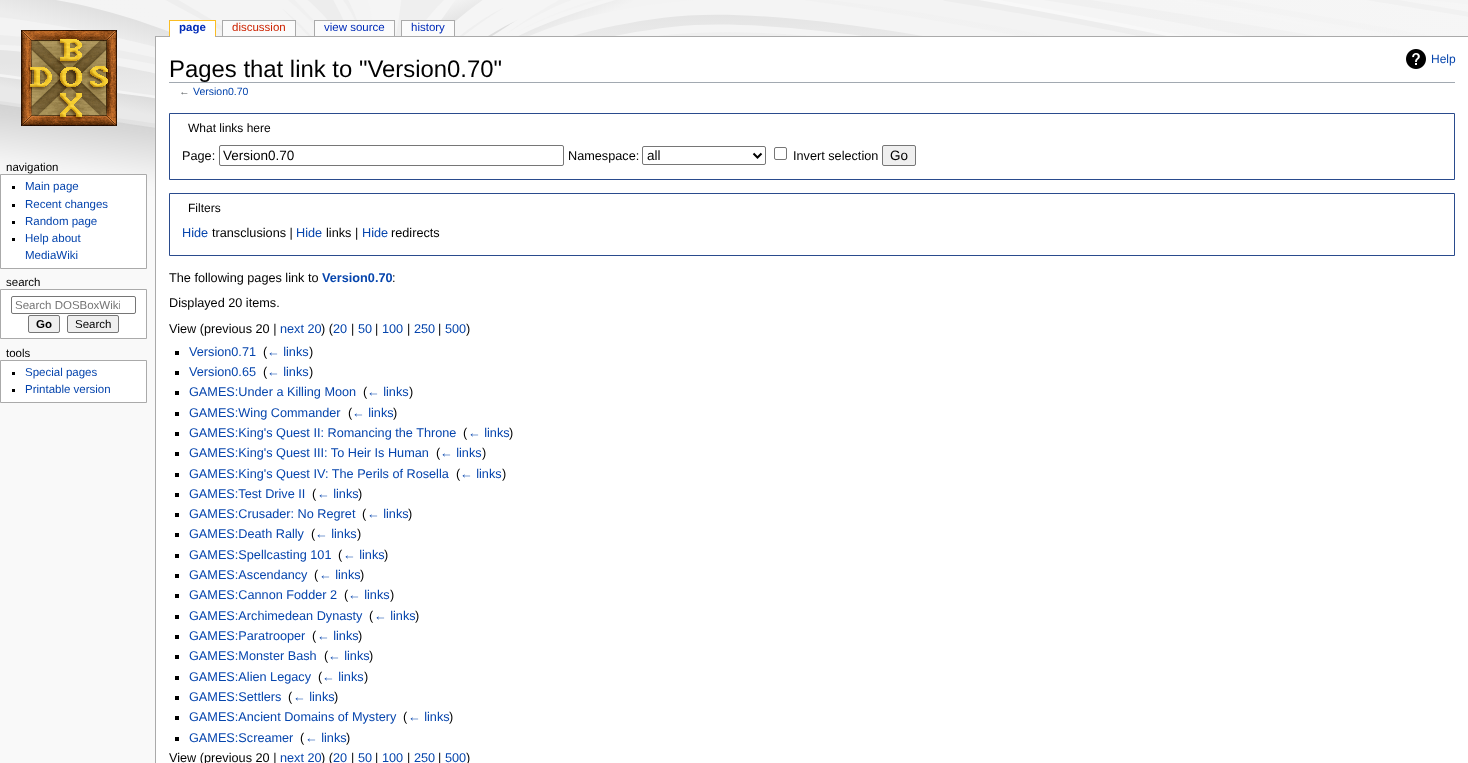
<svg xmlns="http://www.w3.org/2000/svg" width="1468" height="763">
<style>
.a{font:bold 11.5px Liberation Sans;fill:#002bb8}
.b{font:11.5px Liberation Sans;fill:#c20}
.c{font:11.5px Liberation Sans;fill:#002bb8}
.d{font:11.5px Liberation Sans;fill:#000}
.e{font:11.5px Liberation Sans;fill:#0645ad}
.f{font:11.5px Liberation Sans;fill:#757575}
.g{font:bold 11.5px Liberation Sans;fill:#000}
.h{font:23.9px Liberation Sans;fill:#000}
.i{font:12px Liberation Sans;fill:#0645ad}
.j{font:10.5px Liberation Sans;fill:#54595d}
.k{font:10.5px Liberation Sans;fill:#0645ad}
.l{font:12px Liberation Sans;fill:#000}
.m{font:12.7px Liberation Sans;fill:#000}
.n{font:13.5px Liberation Sans;fill:#000}
.o{font:12.7px Liberation Sans;fill:#0645ad}
.p{font:bold 12.7px Liberation Sans;fill:#0645ad}
</style>
<defs>
<clipPath id="clip1"><path d="M15 299h105v12H15z"/></clipPath>
</defs>
<rect width="100%" height="100%" fill="#f9f9f9"/>
<image href="1.png" x="0" y="0" width="1468" height="210"/>
<path fill="#fabd23" d="M169 20h47v1H169z"/>
<path fill="#fabd23" d="M215 20h1v16H215z"/>
<path fill="#fabd23" d="M169 20h1v16H169z"/>
<path fill="#aaa" d="M155 36h1313v1H155z"/>
<path fill="#fff" d="M170 21h45v16H170z"/>
<path fill="#aaa" d="M222 20h74v1H222z"/>
<path fill="#aaa" d="M295 20h1v16H295z"/>
<path fill="#aaa" d="M222 20h1v16H222z"/>
<path fill="#fbfbfb" d="M223 21h72v15H223z"/>
<path fill="#aaa" d="M314 20h81v1H314z"/>
<path fill="#aaa" d="M394 20h1v16H394z"/>
<path fill="#aaa" d="M314 20h1v16H314z"/>
<path fill="#fbfbfb" d="M315 21h79v15H315z"/>
<path fill="#aaa" d="M401 20h54v1H401z"/>
<path fill="#aaa" d="M454 20h1v16H454z"/>
<path fill="#aaa" d="M401 20h1v16H401z"/>
<path fill="#fbfbfb" d="M402 21h52v15H402z"/>
<image href="2.png" x="21" y="30" width="96" height="96"/>
<path fill="#fff" stroke="#aaa" d="M0.5 174.5h146v94H0.5z"/>
<path fill="#000" d="M12 186h3v3H12z"/>
<path fill="#000" d="M12 204h3v3H12z"/>
<path fill="#000" d="M12 221h3v3H12z"/>
<path fill="#000" d="M12 238h3v3H12z"/>
<path fill="#fff" stroke="#aaa" d="M0.5 289.5h146v49H0.5z"/>
<rect fill="none" stroke="#767676" x="11.5" y="296.5" width="124" height="17" rx="1.5"/>
<rect fill="#efefef" stroke="#767676" x="28.5" y="315.5" width="31" height="17" rx="1.5"/>
<rect fill="#efefef" stroke="#767676" x="67.5" y="315.5" width="51" height="17" rx="1.5"/>
<path fill="#fff" stroke="#aaa" d="M0.5 360.5h146v42H0.5z"/>
<path fill="#000" d="M12 372h3v3H12z"/>
<path fill="#000" d="M12 389h3v3H12z"/>
<path fill="#fff" d="M156 37h1312v726H156z"/>
<path fill="#aaa" d="M155 36h1v727H155z"/>
<path fill="#a2a9b1" d="M169 82h1286v1H169z"/>
<image href="3.png" x="1406" y="49" width="20" height="20"/>
<path fill="none" stroke="#2a4b8d" d="M169.5 113.5h1285v66H169.5z"/>
<rect fill="none" stroke="#767676" x="219.5" y="145.5" width="344" height="20" rx="1.5"/>
<rect fill="none" stroke="#767676" x="642.5" y="146.5" width="123" height="18" rx="1.5"/>
<path fill="none" stroke="#000" stroke-width="2" d="M753.5 153.5l4 4l4-4"/>
<rect fill="none" stroke="#767676" x="774.5" y="147.5" width="12" height="12" rx="1.5"/>
<rect fill="#efefef" stroke="#767676" x="882.5" y="145.5" width="33" height="20" rx="1.5"/>
<path fill="none" stroke="#2a4b8d" d="M169.5 193.5h1285v62H169.5z"/>
<path fill="#000" d="M175 351h4v4H175z"/>
<path fill="#000" d="M175 371h4v4H175z"/>
<path fill="#000" d="M175 391h4v4H175z"/>
<path fill="#000" d="M175 412h4v4H175z"/>
<path fill="#000" d="M175 432h4v4H175z"/>
<path fill="#000" d="M175 452h4v4H175z"/>
<path fill="#000" d="M175 473h4v4H175z"/>
<path fill="#000" d="M175 493h4v4H175z"/>
<path fill="#000" d="M175 513h4v4H175z"/>
<path fill="#000" d="M175 533h4v4H175z"/>
<path fill="#000" d="M175 554h4v4H175z"/>
<path fill="#000" d="M175 574h4v4H175z"/>
<path fill="#000" d="M175 594h4v4H175z"/>
<path fill="#000" d="M175 615h4v4H175z"/>
<path fill="#000" d="M175 635h4v4H175z"/>
<path fill="#000" d="M175 655h4v4H175z"/>
<path fill="#000" d="M175 676h4v4H175z"/>
<path fill="#000" d="M175 696h4v4H175z"/>
<path fill="#000" d="M175 716h4v4H175z"/>
<path fill="#000" d="M175 737h4v4H175z"/>
<text class="a" x="179" y="31">page</text>
<text class="b" x="232" y="31">discussion</text>
<text class="c" x="324" y="31">view source</text>
<text class="c" x="411" y="31">history</text>
<text class="d" x="6" y="171">navigation</text>
<text class="e" x="25" y="190">Main page</text>
<text class="e" x="25" y="208">Recent changes</text>
<text class="e" x="25" y="225">Random page</text>
<text class="e" x="25" y="242">Help about</text>
<text class="e" x="25" y="259">MediaWiki</text>
<text class="d" x="6" y="286">search</text>
<g clip-path="url(#clip1)">
<text class="f" x="15" y="309">Search DOSBoxWiki</text>
</g>
<text class="g" x="36" y="328">Go</text>
<text class="d" x="75" y="328">Search</text>
<text class="d" x="6" y="357">tools</text>
<text class="e" x="25" y="376">Special pages</text>
<text class="e" x="25" y="393">Printable version</text>
<text class="h" x="169" y="77">Pages that link to "Version0.70"</text>
<text class="i" x="1431" y="63">Help</text>
<text class="j" x="179" y="95">←</text>
<text class="k" x="193" y="95">Version0.70</text>
<text class="l" x="188" y="132">What links here</text>
<text class="m" x="182" y="160">Page:</text>
<text class="n" x="223" y="160">Version0.70</text>
<text class="m" x="568" y="160">Namespace:</text>
<text class="n" x="647" y="160">all</text>
<text class="m" x="793" y="160">Invert selection</text>
<text class="n" x="890" y="160">Go</text>
<text class="l" x="188" y="212">Filters</text>
<text class="o" x="182" y="237">Hide</text>
<text class="m" x="212" y="237">transclusions |</text>
<text class="o" x="296" y="237">Hide</text>
<text class="m" x="326" y="237">links |</text>
<text class="o" x="362" y="237">Hide</text>
<text class="m" x="391" y="237">redirects</text>
<text class="m" x="169" y="282">The following pages link to</text>
<text class="p" x="322" y="282">Version0.70</text>
<text class="m" x="392" y="282">:</text>
<text class="m" x="169" y="307">Displayed 20 items.</text>
<text class="m" x="169" y="333">View (previous 20 |</text>
<text class="o" x="280" y="333">next 20</text>
<text class="m" x="321" y="333">) (</text>
<text class="o" x="333" y="333">20</text>
<text class="m" x="351" y="333">|</text>
<text class="o" x="358" y="333">50</text>
<text class="m" x="375" y="333">|</text>
<text class="o" x="382" y="333">100</text>
<text class="m" x="407" y="333">|</text>
<text class="o" x="414" y="333">250</text>
<text class="m" x="438" y="333">|</text>
<text class="o" x="445" y="333">500</text>
<text class="m" x="466" y="333">)</text>
<text class="o" x="189" y="356">Version0.71</text>
<text class="m" x="263" y="356">(</text>
<text class="o" x="267" y="356">← links</text>
<text class="m" x="309" y="356">)</text>
<text class="o" x="189" y="376">Version0.65</text>
<text class="m" x="263" y="376">(</text>
<text class="o" x="267" y="376">← links</text>
<text class="m" x="309" y="376">)</text>
<text class="o" x="189" y="396">GAMES:Under a Killing Moon</text>
<text class="m" x="363" y="396">(</text>
<text class="o" x="367" y="396">← links</text>
<text class="m" x="409" y="396">)</text>
<text class="o" x="189" y="417">GAMES:Wing Commander</text>
<text class="m" x="348" y="417">(</text>
<text class="o" x="352" y="417">← links</text>
<text class="m" x="393" y="417">)</text>
<text class="o" x="189" y="437">GAMES:King's Quest II: Romancing the Throne</text>
<text class="m" x="463" y="437">(</text>
<text class="o" x="468" y="437">← links</text>
<text class="m" x="509" y="437">)</text>
<text class="o" x="189" y="457">GAMES:King's Quest III: To Heir Is Human</text>
<text class="m" x="436" y="457">(</text>
<text class="o" x="440" y="457">← links</text>
<text class="m" x="482" y="457">)</text>
<text class="o" x="189" y="478">GAMES:King's Quest IV: The Perils of Rosella</text>
<text class="m" x="456" y="478">(</text>
<text class="o" x="460" y="478">← links</text>
<text class="m" x="502" y="478">)</text>
<text class="o" x="189" y="498">GAMES:Test Drive II</text>
<text class="m" x="312" y="498">(</text>
<text class="o" x="317" y="498">← links</text>
<text class="m" x="358" y="498">)</text>
<text class="o" x="189" y="518">GAMES:Crusader: No Regret</text>
<text class="m" x="362" y="518">(</text>
<text class="o" x="367" y="518">← links</text>
<text class="m" x="408" y="518">)</text>
<text class="o" x="189" y="538">GAMES:Death Rally</text>
<text class="m" x="311" y="538">(</text>
<text class="o" x="315" y="538">← links</text>
<text class="m" x="357" y="538">)</text>
<text class="o" x="189" y="559">GAMES:Spellcasting 101</text>
<text class="m" x="338" y="559">(</text>
<text class="o" x="343" y="559">← links</text>
<text class="m" x="384" y="559">)</text>
<text class="o" x="189" y="579">GAMES:Ascendancy</text>
<text class="m" x="314" y="579">(</text>
<text class="o" x="319" y="579">← links</text>
<text class="m" x="360" y="579">)</text>
<text class="o" x="189" y="599">GAMES:Cannon Fodder 2</text>
<text class="m" x="344" y="599">(</text>
<text class="o" x="348" y="599">← links</text>
<text class="m" x="390" y="599">)</text>
<text class="o" x="189" y="620">GAMES:Archimedean Dynasty</text>
<text class="m" x="369" y="620">(</text>
<text class="o" x="374" y="620">← links</text>
<text class="m" x="415" y="620">)</text>
<text class="o" x="189" y="640">GAMES:Paratrooper</text>
<text class="m" x="312" y="640">(</text>
<text class="o" x="317" y="640">← links</text>
<text class="m" x="358" y="640">)</text>
<text class="o" x="189" y="660">GAMES:Monster Bash</text>
<text class="m" x="324" y="660">(</text>
<text class="o" x="328" y="660">← links</text>
<text class="m" x="369" y="660">)</text>
<text class="o" x="189" y="681">GAMES:Alien Legacy</text>
<text class="m" x="318" y="681">(</text>
<text class="o" x="322" y="681">← links</text>
<text class="m" x="364" y="681">)</text>
<text class="o" x="189" y="701">GAMES:Settlers</text>
<text class="m" x="288" y="701">(</text>
<text class="o" x="293" y="701">← links</text>
<text class="m" x="334" y="701">)</text>
<text class="o" x="189" y="721">GAMES:Ancient Domains of Mystery</text>
<text class="m" x="403" y="721">(</text>
<text class="o" x="408" y="721">← links</text>
<text class="m" x="449" y="721">)</text>
<text class="o" x="189" y="742">GAMES:Screamer</text>
<text class="m" x="300" y="742">(</text>
<text class="o" x="305" y="742">← links</text>
<text class="m" x="346" y="742">)</text>
<text class="m" x="169" y="762">View (previous 20 |</text>
<text class="o" x="280" y="762">next 20</text>
<text class="m" x="321" y="762">) (</text>
<text class="o" x="333" y="762">20</text>
<text class="m" x="351" y="762">|</text>
<text class="o" x="358" y="762">50</text>
<text class="m" x="375" y="762">|</text>
<text class="o" x="382" y="762">100</text>
<text class="m" x="407" y="762">|</text>
<text class="o" x="414" y="762">250</text>
<text class="m" x="438" y="762">|</text>
<text class="o" x="445" y="762">500</text>
<text class="m" x="466" y="762">)</text>
</svg>
